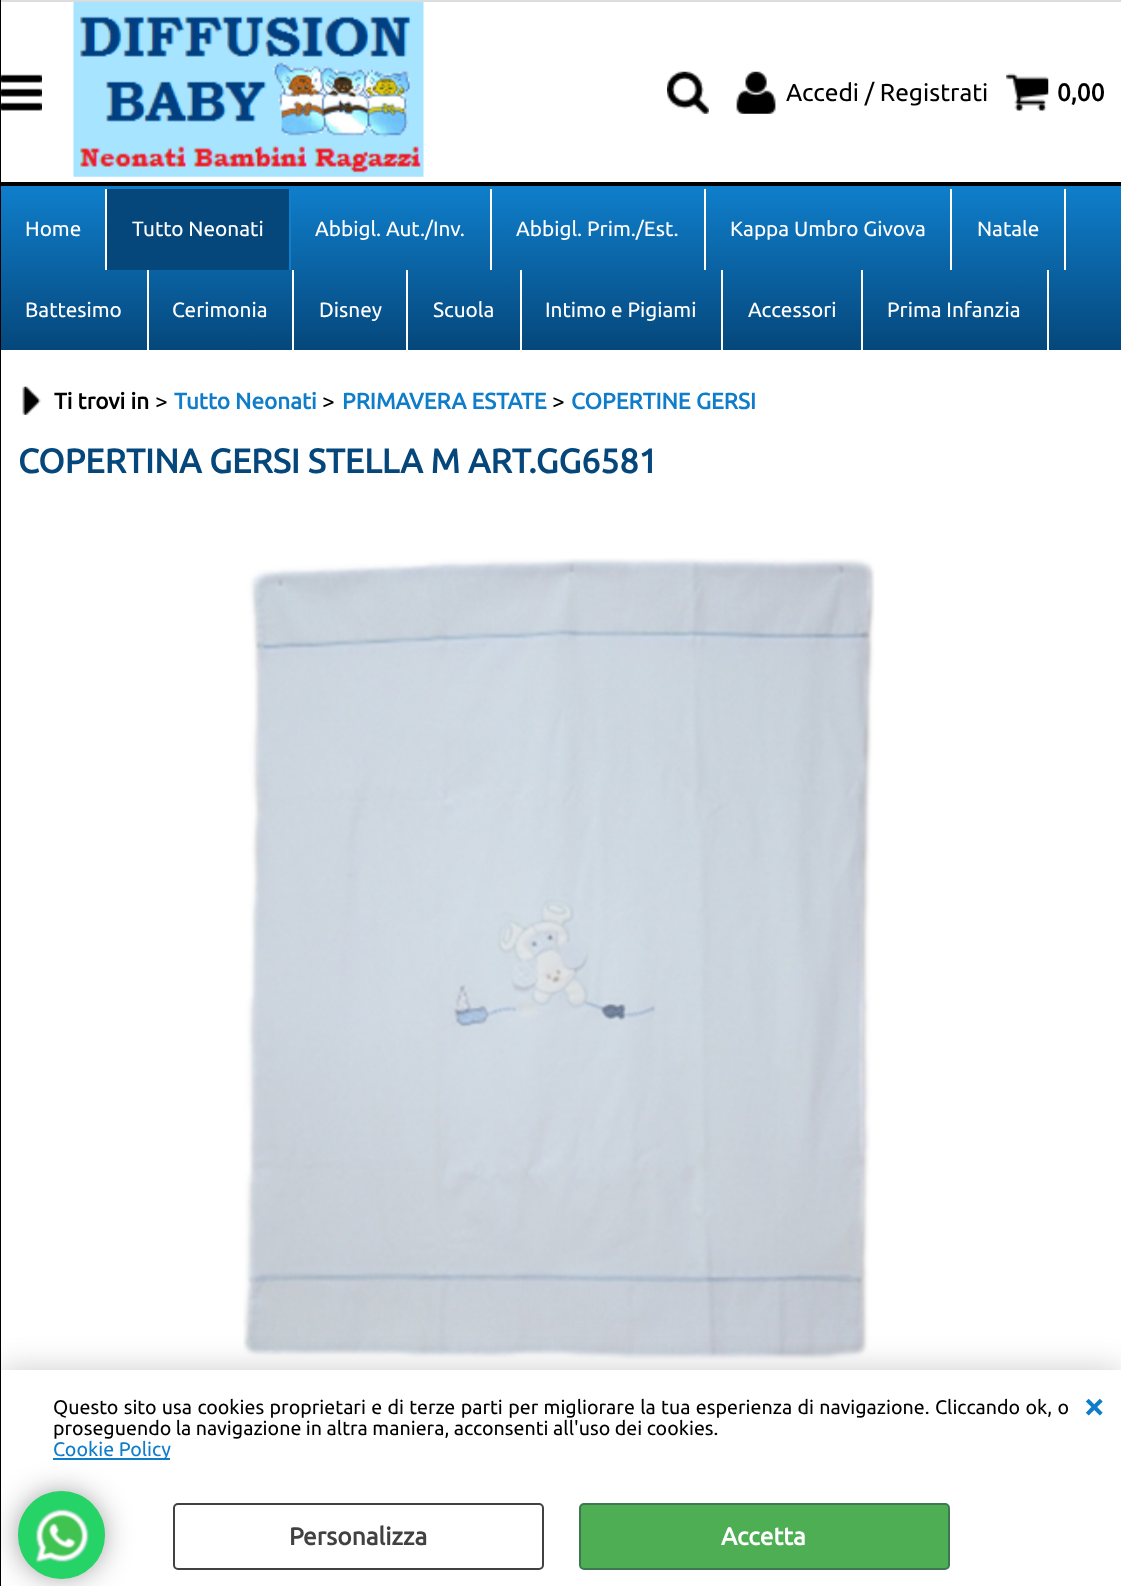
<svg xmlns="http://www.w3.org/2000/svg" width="1121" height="1586">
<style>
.a{font:24.5px Ubuntu;fill:#000}
.b{font:bold 24.5px Ubuntu;fill:#000}
.c{font:20.75px Ubuntu;fill:#fff}
.d{font:bold 22.5px Ubuntu;fill:#000}
.e{font:22.5px Ubuntu;fill:#000}
.f{font:bold 22.5px Ubuntu;fill:#0f7dca}
.g{font:bold 33.9px Ubuntu;fill:#05477b}
.h{font:19.6px Ubuntu;fill:#000}
.i{font:19.6px Ubuntu;fill:#0f7dca}
.j{font:bold 38px Ubuntu;fill:#0f7dca}
.k{font:bold 24.5px Ubuntu;fill:#424141}
.l{font:bold 24.5px Ubuntu;fill:#fff}
</style>
<defs>
<linearGradient id="g1" gradientUnits="userSpaceOnUse" x1="561" y1="185" x2="561" y2="350"><stop offset="0" stop-color="#0f7fcc"/><stop offset="1" stop-color="#05477b"/></linearGradient>
</defs>
<rect width="100%" height="100%" fill="#fff"/>
<path fill="#ddd" d="M0 0h1121v2H0z"/>
<path fill="#000" d="M0 182h1121v4H0z"/>
<image href="7.png" x="243" y="558" width="632" height="802"/>
<path fill="#00000033" filter="blur(16px)" d="M0 1370h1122v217H0z"/>
<path fill="#fff" d="M1 1370h1120v216H1z"/>
<path fill="#0f7dca" d="M53 1458h117v2H53z"/>
<rect fill="#000000b3" filter="blur(17.5px)" x="26" y="1500" width="70" height="70" rx="35"/>
<path fill="#000" d="M0 0h1v1586H0z"/>
<image href="1.png" x="1" y="74" width="41" height="37"/>
<image href="2.png" x="73" y="1" width="351" height="176"/>
<image href="3.png" x="667" y="71" width="42" height="43"/>
<image href="4.png" x="736" y="71" width="40" height="43"/>
<image href="5.png" x="1006" y="73" width="43" height="39"/>
<path fill="url(#g1)" d="M1 186h1120v164H1z"/>
<path fill="#fff" d="M105 189h2v81H105z"/>
<path fill="#05477b" d="M107 189h182v81H107z"/>
<path fill="#0f7fcc" d="M289 189h2v81H289z"/>
<path fill="#fff" d="M490 189h2v81H490z"/>
<path fill="#fff" d="M704 189h2v81H704z"/>
<path fill="#fff" d="M950 189h2v81H950z"/>
<path fill="#fff" d="M1064 189h2v81H1064z"/>
<path fill="#fff" d="M147 270h2v80H147z"/>
<path fill="#fff" d="M292 270h2v80H292z"/>
<path fill="#fff" d="M406 270h2v80H406z"/>
<path fill="#fff" d="M520 270h2v80H520z"/>
<path fill="#fff" d="M721 270h2v80H721z"/>
<path fill="#fff" d="M861 270h2v80H861z"/>
<path fill="#fff" d="M1047 270h2v80H1047z"/>
<image href="6.png" x="22" y="386" width="19" height="29"/>
<rect fill="none" stroke="#424141" stroke-width="2" x="174" y="1504" width="369" height="65" rx="4"/>
<rect fill="#4eae54" stroke="#3f7755" stroke-width="2" x="580" y="1504" width="369" height="65" rx="4"/>
<rect fill="#25d366" x="18" y="1491" width="87" height="88" rx="43.5"/>
<image href="8.png" x="36" y="1509" width="53" height="54"/>
<text class="a" x="786" y="101">Accedi / Registrati</text>
<text class="b" x="1057" y="101">0,00</text>
<text class="c" x="25" y="236">Home</text>
<text class="c" x="132" y="236">Tutto Neonati</text>
<text class="c" x="315" y="236">Abbigl. Aut./Inv.</text>
<text class="c" x="516" y="236">Abbigl. Prim./Est.</text>
<text class="c" x="730" y="236">Kappa Umbro Givova</text>
<text class="c" x="977" y="236">Natale</text>
<text class="c" x="25" y="317">Battesimo</text>
<text class="c" x="172" y="317">Cerimonia</text>
<text class="c" x="319" y="317">Disney</text>
<text class="c" x="433" y="317">Scuola</text>
<text class="c" x="545" y="317">Intimo e Pigiami</text>
<text class="c" x="748" y="317">Accessori</text>
<text class="c" x="887" y="317">Prima Infanzia</text>
<text class="d" x="54" y="409">Ti trovi in</text>
<text class="e" x="155" y="409">&gt;</text>
<text class="f" x="174" y="409">Tutto Neonati</text>
<text class="e" x="322" y="409">&gt;</text>
<text class="f" x="342" y="409">PRIMAVERA ESTATE</text>
<text class="e" x="552" y="409">&gt;</text>
<text class="f" x="571" y="409">COPERTINE GERSI</text>
<text class="g" x="18" y="473">COPERTINA GERSI STELLA M ART.GG6581</text>
<text class="h" x="53" y="1414" word-spacing="0.8">Questo sito usa cookies proprietari e di terze parti per migliorare la tua esperienza di navigazione. Cliccando ok, o</text>
<text class="h" x="53" y="1435">proseguendo la navigazione in altra maniera, acconsenti all'uso dei cookies.</text>
<text class="i" x="53" y="1456">Cookie Policy</text>
<text class="j" x="1083" y="1419">×</text>
<text class="k" x="289" y="1545">Personalizza</text>
<text class="l" x="721" y="1545">Accetta</text>
</svg>
